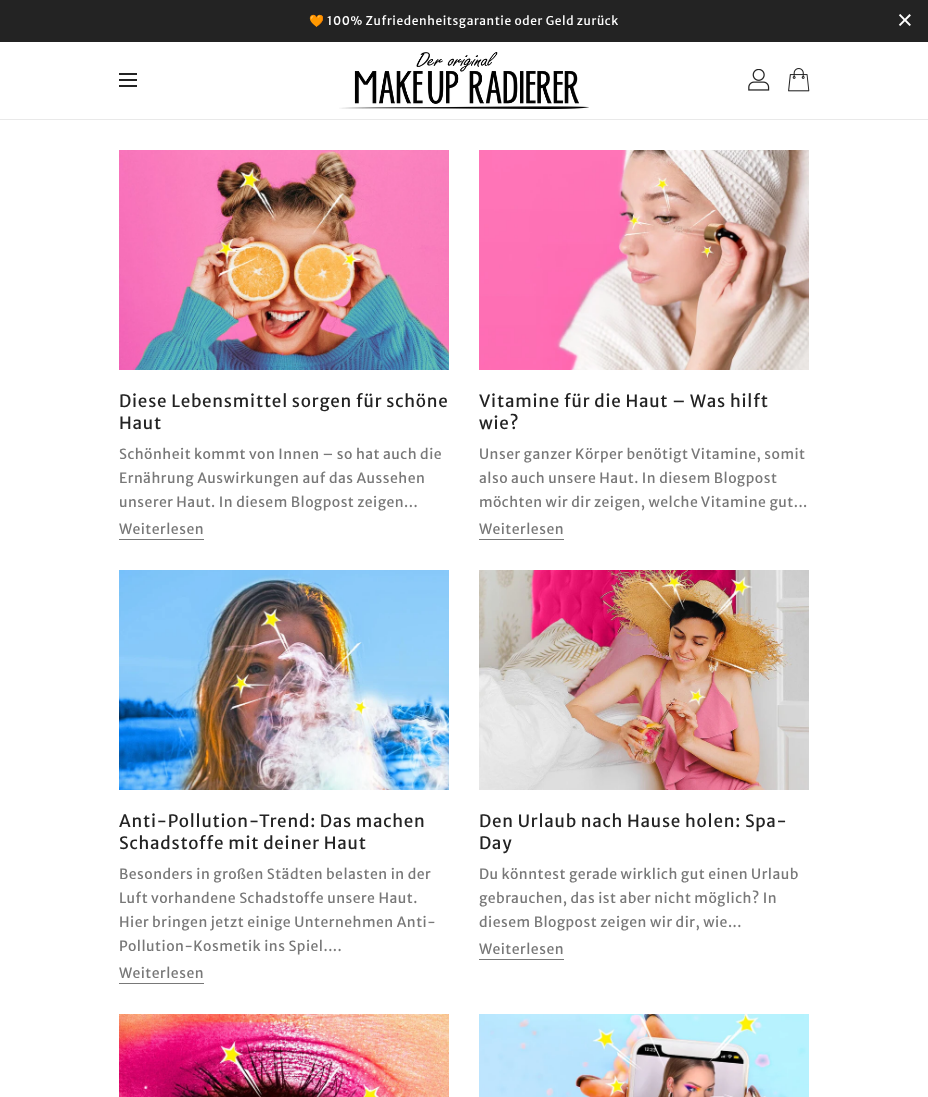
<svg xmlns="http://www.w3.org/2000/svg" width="928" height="1097">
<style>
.a{font:12px Noto Color Emoji;letter-spacing:0.6px;fill:#fff}
.b{font:12px Merriweather Sans;letter-spacing:0.6px;fill:#fff}
.c{font:27px Liberation Sans;fill:#fff}
.d{font:17px Merriweather Sans;letter-spacing:0.8px;fill:#232323}
.e{font:14px Merriweather Sans;letter-spacing:0.5px;fill:#787878}
</style>
<defs>
<clipPath id="clip1"><path d="M309 10h310v22H309z"/></clipPath>
</defs>
<rect width="100%" height="100%" fill="#fff"/>
<path fill="#232323" d="M0 0h928v42H0z"/>
<path fill="#e9e9e9" d="M0 119h928v1H0z"/>
<path fill="#232323" d="M119 73h18v2H119z"/>
<path fill="#232323" d="M119 79h18v2H119z"/>
<path fill="#232323" d="M119 85h18v2H119z"/>
<image href="1.png" x="339" y="52" width="250" height="57"/>
<image href="2.png" x="748" y="69" width="22" height="22"/>
<image href="3.png" x="788" y="68" width="22" height="24"/>
<image href="4.png" x="119" y="150" width="330" height="220"/>
<path fill="#787878" d="M119 539h85v1H119z"/>
<image href="5.png" x="479" y="150" width="330" height="220"/>
<path fill="#787878" d="M479 539h85v1H479z"/>
<image href="6.png" x="119" y="570" width="330" height="220"/>
<path fill="#787878" d="M119 983h85v1H119z"/>
<image href="7.png" x="479" y="570" width="330" height="220"/>
<path fill="#787878" d="M479 959h85v1H479z"/>
<image href="8.png" x="119" y="1014" width="330" height="83"/>
<image href="9.png" x="479" y="1014" width="330" height="83"/>
<g clip-path="url(#clip1)">
<text class="a" x="309" y="25">🧡</text>
</g>
<text class="b" x="327" y="25">100% Zufriedenheitsgarantie oder Geld zurück</text>
<text class="c" x="897" y="29">×</text>
<text class="d" x="119" y="407">Diese Lebensmittel sorgen für schöne</text>
<text class="d" x="119" y="429">Haut</text>
<text class="e" x="119" y="459">Schönheit kommt von Innen – so hat auch die</text>
<text class="e" x="119" y="483">Ernährung Auswirkungen auf das Aussehen</text>
<text class="e" x="119" y="507">unserer Haut. In diesem Blogpost zeigen...</text>
<text class="e" x="119" y="534">Weiterlesen</text>
<text class="d" x="479" y="407">Vitamine für die Haut – Was hilft</text>
<text class="d" x="479" y="429">wie?</text>
<text class="e" x="479" y="459">Unser ganzer Körper benötigt Vitamine, somit</text>
<text class="e" x="479" y="483">also auch unsere Haut. In diesem Blogpost</text>
<text class="e" x="479" y="507">möchten wir dir zeigen, welche Vitamine gut...</text>
<text class="e" x="479" y="534">Weiterlesen</text>
<text class="d" x="119" y="827">Anti-Pollution-Trend: Das machen</text>
<text class="d" x="119" y="849">Schadstoffe mit deiner Haut</text>
<text class="e" x="119" y="879">Besonders in großen Städten belasten in der</text>
<text class="e" x="119" y="903">Luft vorhandene Schadstoffe unsere Haut.</text>
<text class="e" x="119" y="927">Hier bringen jetzt einige Unternehmen Anti-</text>
<text class="e" x="119" y="951">Pollution-Kosmetik ins Spiel....</text>
<text class="e" x="119" y="978">Weiterlesen</text>
<text class="d" x="479" y="827">Den Urlaub nach Hause holen: Spa-</text>
<text class="d" x="479" y="849">Day</text>
<text class="e" x="479" y="879">Du könntest gerade wirklich gut einen Urlaub</text>
<text class="e" x="479" y="903">gebrauchen, das ist aber nicht möglich? In</text>
<text class="e" x="479" y="927">diesem Blogpost zeigen wir dir, wie...</text>
<text class="e" x="479" y="954">Weiterlesen</text>
</svg>
